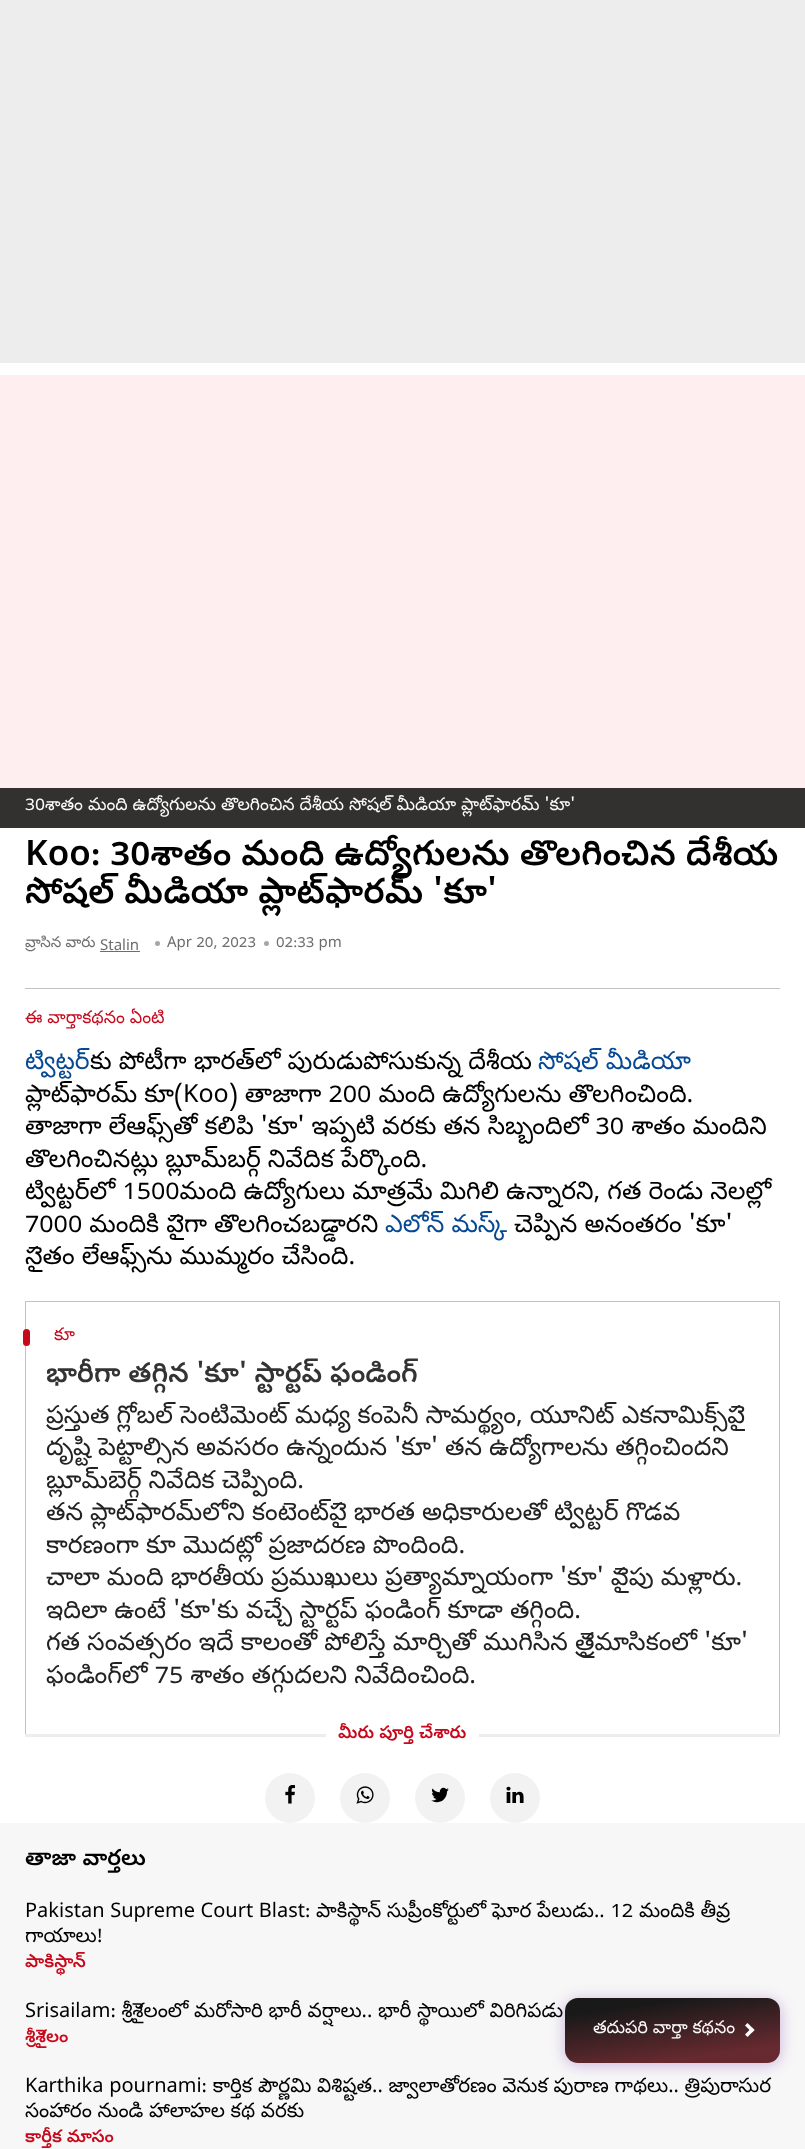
<svg xmlns="http://www.w3.org/2000/svg" width="805" height="2149">
<style>
.a{font:17.5px Noto Sans Telugu;fill:#fffcfc}
.b{font:600 35px Noto Sans Telugu;fill:#000}
.c{font:15px Noto Sans Telugu;fill:#6e6d6d}
.d{font:17.5px Noto Sans Telugu;fill:#c7091b}
.e{font:25px Noto Sans Telugu;fill:#064893}
.f{font:25px Noto Sans Telugu;fill:#000}
.g{font:600 27.5px Noto Sans Telugu;fill:#333}
.h{font:25px Noto Sans Telugu;fill:#222}
.i{font:600 17.5px Noto Sans Telugu;fill:#c7091b}
.j{font:20px 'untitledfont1';fill:#000}
.k{font:600 22.5px Noto Sans Telugu;fill:#000}
.l{font:20px Noto Sans Telugu;fill:#000}
</style>
<defs>
<clipPath id="clip1"><path d="M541 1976h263v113h-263zm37 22h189c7 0 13 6 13 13v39c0 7-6 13-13 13h-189c-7 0-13-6-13-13v-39c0-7 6-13 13-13z" clip-rule="evenodd"/></clipPath>
<linearGradient id="g1" gradientUnits="userSpaceOnUse" x1="666" y1="1983" x2="679" y2="2077"><stop offset="0.19" stop-color="#000" stop-opacity="0.9"/><stop offset="0.81" stop-color="#551319" stop-opacity="0.9"/></linearGradient>
</defs>
<rect width="100%" height="100%" fill="#fff"/>
<path fill="#eeeded" d="M0 0h805v363H0z"/>
<path fill="#ffeef0" d="M0 375h805v413H0z"/>
<path fill="#333030" d="M0 788h805v40H0z"/>
<path fill="#6e6d6d" d="M100 951h40v1H100z"/>
<circle fill="#a6a6a6" cx="157.5" cy="943.5" r="2.5"/>
<circle fill="#a6a6a6" cx="266.5" cy="943.5" r="2.5"/>
<path fill="#c2c2c2" d="M25 988h755v1H25z"/>
<path fill="#c2c2c2" d="M25 1301h755v1H25z"/>
<path fill="#c2c2c2" d="M779 1301h1v434H779z"/>
<path fill="#c2c2c2" d="M25 1301h1v434H25z"/>
<rect fill="#c7091b" x="23" y="1329" width="7" height="17" rx="3.5"/>
<path fill="#edecee" d="M25 1734h301v3H25z"/>
<path fill="#edecee" d="M479 1734h301v3H479z"/>
<circle fill="#f2f2f2" cx="290" cy="1798" r="25"/>
<image href="1.png" x="285" y="1785" width="10" height="19"/>
<circle fill="#f2f2f2" cx="365" cy="1798" r="25"/>
<circle fill="#f2f2f2" cx="440" cy="1798" r="25"/>
<circle fill="#f2f2f2" cx="515" cy="1798" r="25"/>
<path fill="#f7f7f7" d="M0 1823h805v326H0z"/>
<g clip-path="url(#clip1)">
<rect fill="#55019845" filter="blur(7.5px)" x="565" y="2000" width="215" height="65" rx="13"/>
</g>
<rect fill="url(#g1)" x="565" y="1998" width="215" height="65" rx="13"/>
<path fill="#fefefe" d="M754.5 2030l-7 7l-2.5-2.5l7-7z"/>
<path fill="#fefefe" d="M754.5 2030l-2.5 2.5l-7-7l2.5-2.5z"/>
<text class="a" x="25" y="810">30శాతం మంది ఉద్యోగులను తొలగించిన దేశీయ సోషల్ మీడియా ప్లాట్‌ఫారమ్ 'కూ'</text>
<text class="b" x="25" y="865">Koo: 30శాతం మంది ఉద్యోగులను తొలగించిన దేశీయ</text>
<text class="b" x="25" y="903">సోషల్ మీడియా ప్లాట్‌ఫారమ్ 'కూ'</text>
<text class="c" x="25" y="947">వ్రాసిన వారు</text>
<text class="c" x="100" y="950">Stalin</text>
<text class="c" x="167" y="947">Apr 20, 2023</text>
<text class="c" x="276" y="947">02:33 pm</text>
<text class="d" x="25" y="1023">ఈ వార్తాకథనం ఏంటి</text>
<text class="e" x="25" y="1069">ట్విట్టర్‌</text>
<text class="f" x="90" y="1069">కు పోటీగా భారత్‌లో పురుడుపోసుకున్న దేశీయ</text>
<text class="e" x="538" y="1069">సోషల్ మీడియా</text>
<text class="f" x="25" y="1102">ప్లాట్‌ఫారమ్ కూ(Koo) తాజాగా 200 మంది ఉద్యోగులను తొలగించింది.</text>
<text class="f" x="25" y="1134">తాజాగా లేఆఫ్స్‌తో కలిపి 'కూ' ఇప్పటి వరకు తన సిబ్బందిలో 30 శాతం మందిని</text>
<text class="f" x="25" y="1167">తొలగించినట్లు బ్లూమ్‌బర్గ్ నివేదిక పేర్కొంది.</text>
<text class="f" x="25" y="1199">ట్విట్టర్‌లో 1500మంది ఉద్యోగులు మాత్రమే మిగిలి ఉన్నారని, గత రెండు నెలల్లో</text>
<text class="f" x="25" y="1232">7000 మందికి పైగా తొలగించబడ్డారని</text>
<text class="e" x="385" y="1232">ఎలోన్ మస్క్</text>
<text class="f" x="514" y="1232">చెప్పిన అనంతరం 'కూ'</text>
<text class="f" x="25" y="1264">సైతం లేఆఫ్స్‌ను ముమ్మరం చేసింది.</text>
<text class="d" x="54" y="1340">కూ</text>
<text class="g" x="46" y="1382">భారీగా తగ్గిన 'కూ' స్టార్టప్ ఫండింగ్</text>
<text class="h" x="46" y="1423">ప్రస్తుత గ్లోబల్ సెంటిమెంట్ మధ్య కంపెనీ సామర్థ్యం, యూనిట్ ఎకనామిక్స్‌పై</text>
<text class="h" x="46" y="1455">దృష్టి పెట్టాల్సిన అవసరం ఉన్నందున 'కూ' తన ఉద్యోగాలను తగ్గించిందని</text>
<text class="h" x="46" y="1488">బ్లూమ్‌బెర్గ్ నివేదిక చెప్పింది.</text>
<text class="h" x="46" y="1520">తన ప్లాట్‌ఫారమ్‌లోని కంటెంట్‌పై భారత అధికారులతో ట్విట్టర్ గొడవ</text>
<text class="h" x="46" y="1553">కారణంగా కూ మొదట్లో ప్రజాదరణ పొందింది.</text>
<text class="h" x="46" y="1585">చాలా మంది భారతీయ ప్రముఖులు ప్రత్యామ్నాయంగా 'కూ' వైపు మళ్లారు.</text>
<text class="h" x="46" y="1618">ఇదిలా ఉంటే 'కూ'కు వచ్చే స్టార్టప్ ఫండింగ్ కూడా తగ్గింది.</text>
<text class="h" x="46" y="1650">గత సంవత్సరం ఇదే కాలంతో పోలిస్తే మార్చితో ముగిసిన త్రైమాసికంలో 'కూ'</text>
<text class="h" x="46" y="1683">ఫండింగ్‌లో 75 శాతం తగ్గుదలని నివేదించింది.</text>
<text class="i" x="338" y="1738">మీరు పూర్తి చేశారు</text>
<text class="j" x="355" y="1805">6</text>
<text class="j" x="430" y="1805">0</text>
<text class="j" x="505" y="1805">1</text>
<text class="a" x="593" y="2033">తదుపరి వార్తా కథనం</text>
<text class="k" x="25" y="1865">తాజా వార్తలు</text>
<text class="l" x="25" y="1917">Pakistan Supreme Court Blast: పాకిస్థాన్‌ సుప్రీంకోర్టులో ఘోర పేలుడు.. 12 మందికి తీవ్ర</text>
<text class="l" x="25" y="1942">గాయాలు!</text>
<text class="i" x="25" y="1967">పాకిస్థాన్</text>
<text class="l" x="25" y="2017">Srisailam: శ్రీశైలంలో మరోసారి భారీ వర్షాలు.. భారీ స్థాయిలో విరిగిపడు</text>
<text class="i" x="25" y="2042">శ్రీశైలం</text>
<text class="l" x="25" y="2092">Karthika pournami: కార్తిక పౌర్ణమి విశిష్టత.. జ్వాలాతోరణం వెనుక పురాణ గాథలు.. త్రిపురాసుర</text>
<text class="l" x="25" y="2117">సంహారం నుండి హాలాహల కథ వరకు</text>
<text class="i" x="25" y="2142">కార్తీక మాసం</text>
</svg>
